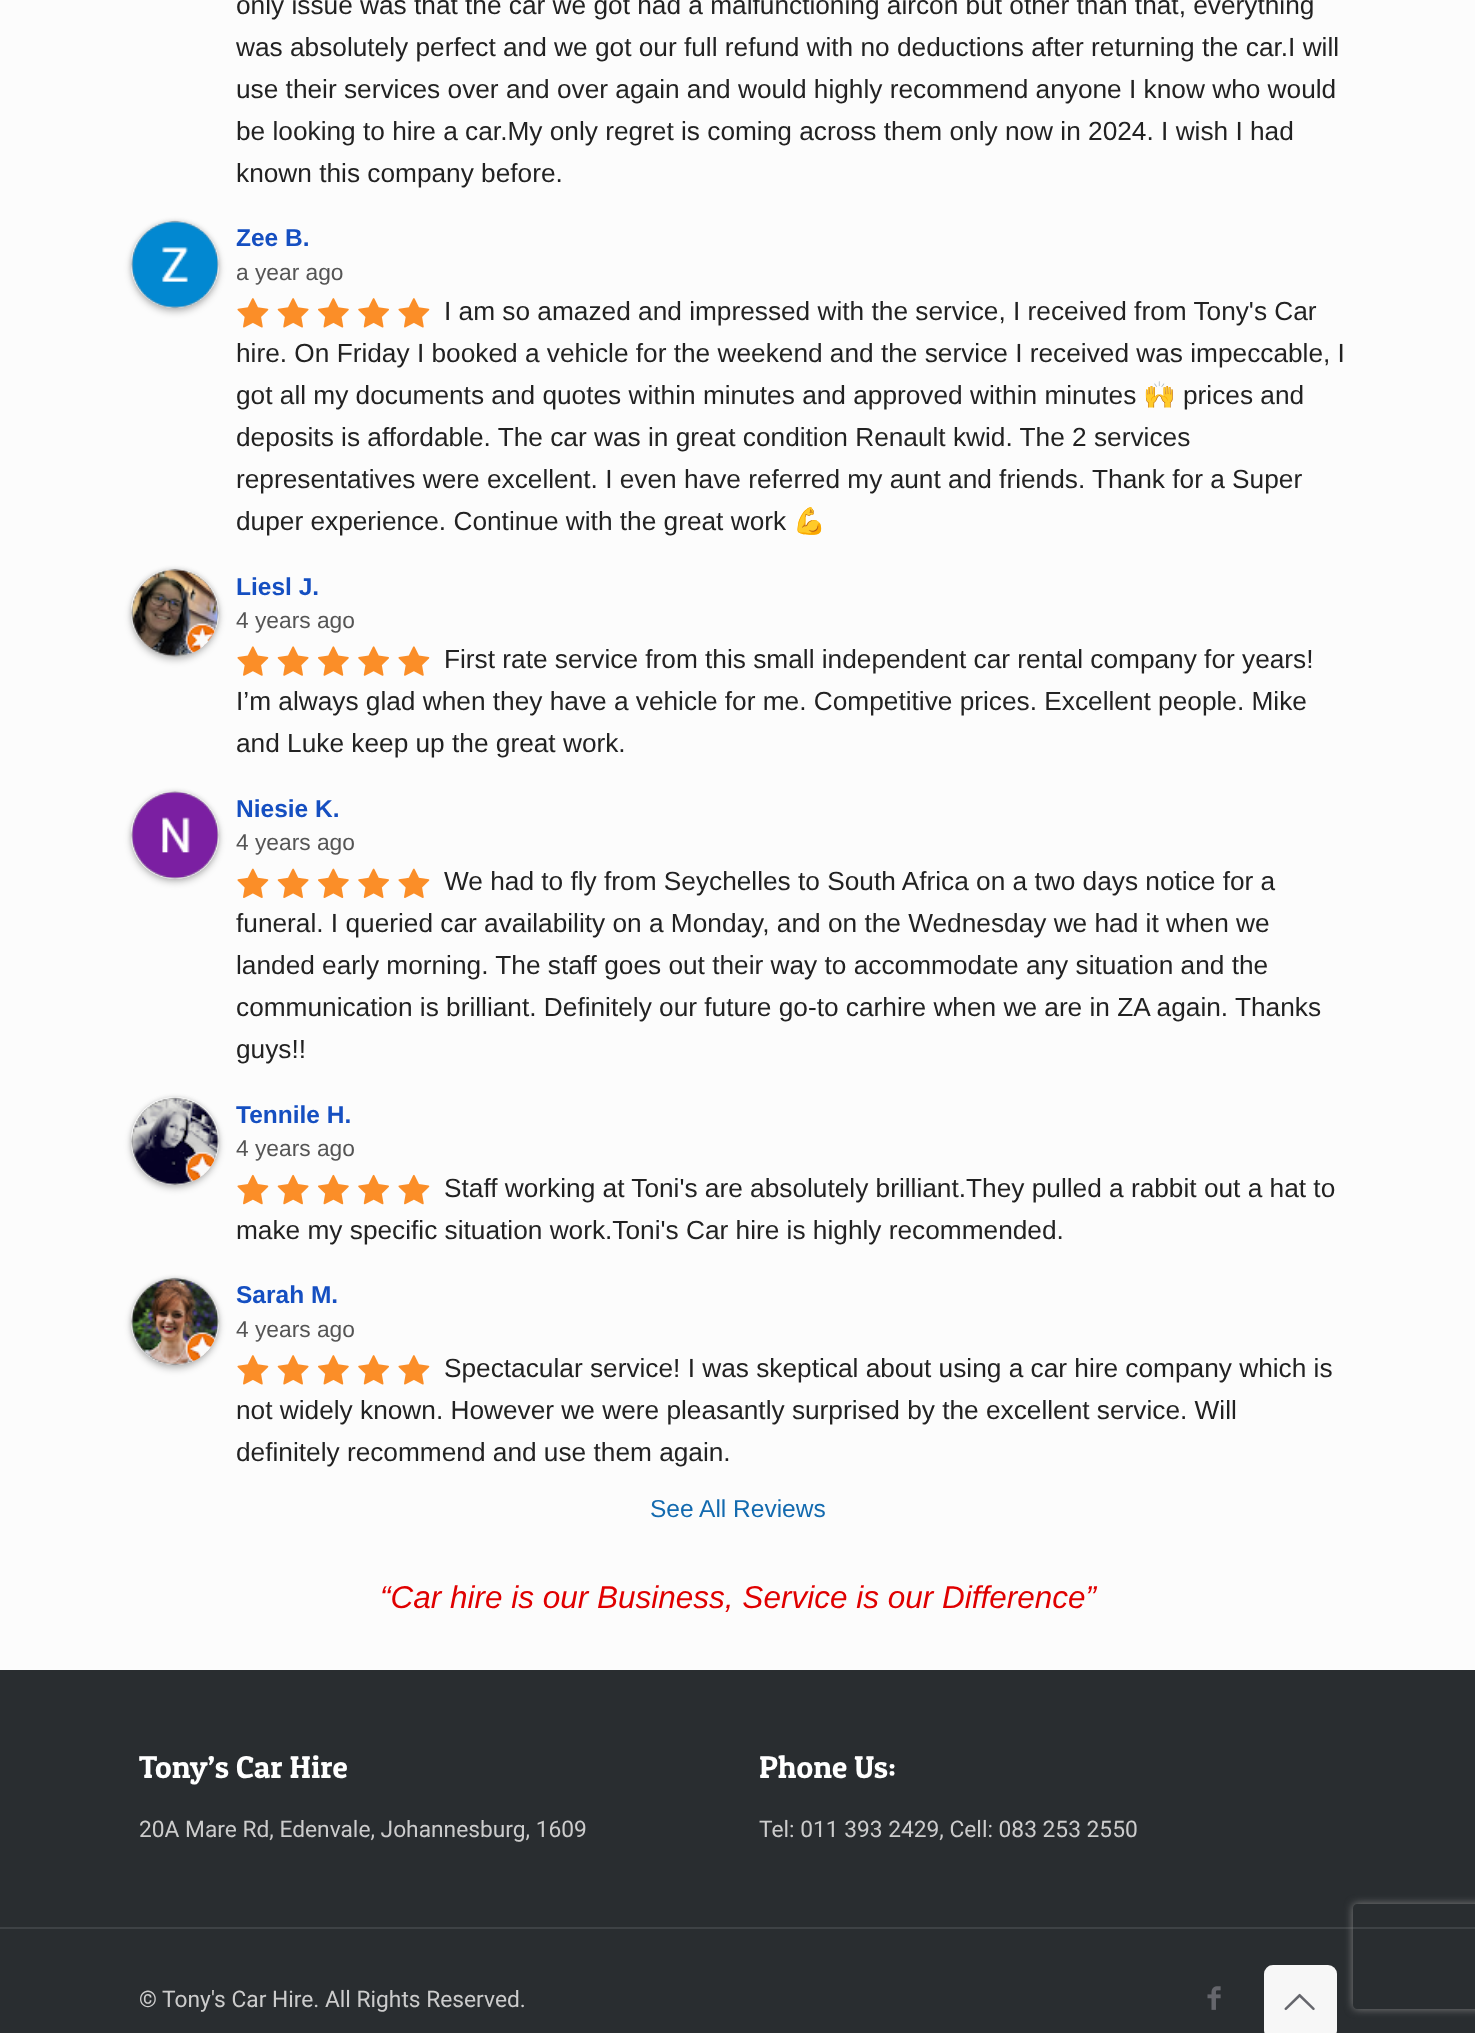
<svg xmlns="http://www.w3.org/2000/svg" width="1475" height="2033">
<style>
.a{font:26.25px Liberation Sans;fill:#222}
.b{font:bold 24.5px Liberation Sans;fill:#154fc1}
.c{font:22.75px Liberation Sans;fill:#555}
.d{font:26.25px Noto Color Emoji;fill:#222}
.e{font:24.5px Liberation Sans;fill:#136aaf}
.f{font:italic 31.5px Liberation Sans;fill:#e00000}
.g{font:31.5px Patua One;fill:#fff}
.h{font:22.75px Roboto;fill:#ccc}
</style>
<defs>
<clipPath id="clip1"><path d="M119 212h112v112h-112zm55.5 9h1c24 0 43.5 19.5 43.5 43.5c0 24-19.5 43.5-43.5 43.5h-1c-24 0-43.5-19.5-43.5-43.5c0-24 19.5-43.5 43.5-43.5z" clip-rule="evenodd"/></clipPath>
<clipPath id="clip2"><path d="M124 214h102v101h-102zm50.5 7h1c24 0 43.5 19.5 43.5 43.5c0 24-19.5 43.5-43.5 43.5h-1c-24 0-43.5-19.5-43.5-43.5c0-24 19.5-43.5 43.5-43.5z" clip-rule="evenodd"/></clipPath>
<clipPath id="clip3"><path d="M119 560h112v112h-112zm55.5 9h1c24 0 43.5 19.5 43.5 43.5c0 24-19.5 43.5-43.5 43.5h-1c-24 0-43.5-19.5-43.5-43.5c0-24 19.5-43.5 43.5-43.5z" clip-rule="evenodd"/></clipPath>
<clipPath id="clip4"><path d="M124 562h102v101h-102zm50.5 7h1c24 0 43.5 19.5 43.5 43.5c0 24-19.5 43.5-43.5 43.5h-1c-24 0-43.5-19.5-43.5-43.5c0-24 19.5-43.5 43.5-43.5z" clip-rule="evenodd"/></clipPath>
<clipPath id="clip5"><path d="M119 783h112v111h-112zm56 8c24.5 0 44 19.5 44 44c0 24.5-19.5 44-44 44c-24.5 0-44-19.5-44-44c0-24.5 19.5-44 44-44z" clip-rule="evenodd"/></clipPath>
<clipPath id="clip6"><path d="M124 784h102v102h-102zm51 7c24.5 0 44 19.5 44 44c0 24.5-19.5 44-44 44c-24.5 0-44-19.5-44-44c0-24.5 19.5-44 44-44z" clip-rule="evenodd"/></clipPath>
<clipPath id="clip7"><path d="M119 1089h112v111h-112zm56 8c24.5 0 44 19.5 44 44c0 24.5-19.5 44-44 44c-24.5 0-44-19.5-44-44c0-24.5 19.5-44 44-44z" clip-rule="evenodd"/></clipPath>
<clipPath id="clip8"><path d="M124 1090h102v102h-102zm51 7c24.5 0 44 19.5 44 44c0 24.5-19.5 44-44 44c-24.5 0-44-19.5-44-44c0-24.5 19.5-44 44-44z" clip-rule="evenodd"/></clipPath>
<clipPath id="clip9"><path d="M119 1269h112v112h-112zm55.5 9h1c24 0 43.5 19.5 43.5 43.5c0 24-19.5 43.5-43.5 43.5h-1c-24 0-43.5-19.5-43.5-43.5c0-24 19.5-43.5 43.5-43.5z" clip-rule="evenodd"/></clipPath>
<clipPath id="clip10"><path d="M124 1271h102v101h-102zm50.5 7h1c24 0 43.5 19.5 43.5 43.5c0 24-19.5 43.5-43.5 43.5h-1c-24 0-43.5-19.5-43.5-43.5c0-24 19.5-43.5 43.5-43.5z" clip-rule="evenodd"/></clipPath>
<clipPath id="clip11"><path d="M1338 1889h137v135h-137zm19 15h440c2 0 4 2 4 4v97c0 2-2 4-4 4h-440c-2 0-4-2-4-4v-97c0-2 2-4 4-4z" clip-rule="evenodd"/></clipPath>
</defs>
<rect width="100%" height="100%" fill="#fcfcfc"/>
<g clip-path="url(#clip1)">
<rect fill="#0000003d" filter="blur(3.5px)" x="131" y="224" width="88" height="88" rx="44"/>
</g>
<g clip-path="url(#clip2)">
<rect fill="#0000001f" filter="blur(2px)" x="131" y="221" width="88" height="87" rx="43.5"/>
</g>
<image href="1.png" x="131" y="220" width="88" height="89"/>
<image href="2.png" x="237" y="298" width="32" height="30"/>
<image href="3.png" x="277" y="298" width="32" height="30"/>
<image href="4.png" x="318" y="298" width="31" height="30"/>
<image href="5.png" x="358" y="298" width="31" height="30"/>
<image href="2.png" x="398" y="298" width="32" height="30"/>
<g clip-path="url(#clip3)">
<rect fill="#0000003d" filter="blur(3.5px)" x="131" y="572" width="88" height="88" rx="44"/>
</g>
<g clip-path="url(#clip4)">
<rect fill="#0000001f" filter="blur(2px)" x="131" y="569" width="88" height="87" rx="43.5"/>
</g>
<image href="6.png" x="131" y="569" width="88" height="88"/>
<image href="7.png" x="237" y="646" width="32" height="30"/>
<image href="8.png" x="277" y="646" width="32" height="30"/>
<image href="9.png" x="318" y="646" width="31" height="30"/>
<image href="10.png" x="358" y="646" width="31" height="30"/>
<image href="7.png" x="398" y="646" width="32" height="30"/>
<g clip-path="url(#clip5)">
<rect fill="#0000003d" filter="blur(3.5px)" x="131" y="795" width="88" height="87" rx="43.5"/>
</g>
<g clip-path="url(#clip6)">
<rect fill="#0000001f" filter="blur(2px)" x="131" y="791" width="88" height="88" rx="44"/>
</g>
<image href="11.png" x="131" y="791" width="88" height="88"/>
<image href="12.png" x="237" y="868" width="32" height="30"/>
<image href="13.png" x="277" y="868" width="32" height="30"/>
<image href="14.png" x="318" y="868" width="31" height="30"/>
<image href="15.png" x="358" y="868" width="31" height="30"/>
<image href="12.png" x="398" y="868" width="32" height="30"/>
<g clip-path="url(#clip7)">
<rect fill="#0000003d" filter="blur(3.5px)" x="131" y="1101" width="88" height="87" rx="43.5"/>
</g>
<g clip-path="url(#clip8)">
<rect fill="#0000001f" filter="blur(2px)" x="131" y="1097" width="88" height="88" rx="44"/>
</g>
<image href="16.png" x="131" y="1097" width="88" height="88"/>
<image href="17.png" x="237" y="1174" width="32" height="31"/>
<image href="18.png" x="277" y="1174" width="32" height="31"/>
<image href="19.png" x="318" y="1174" width="31" height="31"/>
<image href="20.png" x="358" y="1174" width="31" height="31"/>
<image href="17.png" x="398" y="1174" width="32" height="31"/>
<g clip-path="url(#clip9)">
<rect fill="#0000003d" filter="blur(3.5px)" x="131" y="1281" width="88" height="88" rx="44"/>
</g>
<g clip-path="url(#clip10)">
<rect fill="#0000001f" filter="blur(2px)" x="131" y="1278" width="88" height="87" rx="43.5"/>
</g>
<image href="21.png" x="131" y="1277" width="88" height="89"/>
<image href="2.png" x="237" y="1355" width="32" height="30"/>
<image href="3.png" x="277" y="1355" width="32" height="30"/>
<image href="4.png" x="318" y="1355" width="31" height="30"/>
<image href="5.png" x="358" y="1355" width="31" height="30"/>
<image href="2.png" x="398" y="1355" width="32" height="30"/>
<path fill="#292d30" d="M0 1670h1475v363H0z"/>
<path fill="#3e4245" d="M0 1927h1475v2H0z"/>
<image href="22.png" x="1207" y="1986" width="14" height="24"/>
<rect fill="#f7f7f7" x="1264" y="1965" width="73" height="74" rx="9"/>
<image href="23.png" x="1284" y="1993" width="31" height="18"/>
<g clip-path="url(#clip11)">
<rect fill="#808080" filter="blur(4.5px)" x="1353" y="1904" width="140" height="105" rx="4"/>
</g>
<text class="a" x="236" y="14">only issue was that the car we got had a malfunctioning aircon but other than that, everything</text>
<text class="a" x="236" y="56">was absolutely perfect and we got our full refund with no deductions after returning the car.I will</text>
<text class="a" x="236" y="98">use their services over and over again and would highly recommend anyone I know who would</text>
<text class="a" x="236" y="140">be looking to hire a car.My only regret is coming across them only now in 2024. I wish I had</text>
<text class="a" x="236" y="182">known this company before.</text>
<text class="b" x="236" y="246">Zee B.</text>
<text class="c" x="236" y="280">a year ago</text>
<text class="a" x="444" y="320">I am so amazed and impressed with the service, I received from Tony's Car</text>
<text class="a" x="236" y="362">hire. On Friday I booked a vehicle for the weekend and the service I received was impeccable, I</text>
<text class="a" x="236" y="404">got all my documents and quotes within minutes and approved within minutes</text>
<text class="d" x="1143" y="404">🙌</text>
<text class="a" x="1183" y="404">prices and</text>
<text class="a" x="236" y="446">deposits is affordable. The car was in great condition Renault kwid. The 2 services</text>
<text class="a" x="236" y="488">representatives were excellent. I even have referred my aunt and friends. Thank for a Super</text>
<text class="a" x="236" y="530">duper experience. Continue with the great work</text>
<text class="d" x="793" y="530">💪</text>
<text class="b" x="236" y="595">Liesl J.</text>
<text class="c" x="236" y="628">4 years ago</text>
<text class="a" x="444" y="668">First rate service from this small independent car rental company for years!</text>
<text class="a" x="236" y="710">I’m always glad when they have a vehicle for me. Competitive prices. Excellent people. Mike</text>
<text class="a" x="236" y="752">and Luke keep up the great work.</text>
<text class="b" x="236" y="817">Niesie K.</text>
<text class="c" x="236" y="850">4 years ago</text>
<text class="a" x="444" y="890">We had to fly from Seychelles to South Africa on a two days notice for a</text>
<text class="a" x="236" y="932">funeral. I queried car availability on a Monday, and on the Wednesday we had it when we</text>
<text class="a" x="236" y="974">landed early morning. The staff goes out their way to accommodate any situation and the</text>
<text class="a" x="236" y="1016">communication is brilliant. Definitely our future go-to carhire when we are in ZA again. Thanks</text>
<text class="a" x="236" y="1058">guys!!</text>
<text class="b" x="236" y="1123">Tennile H.</text>
<text class="c" x="236" y="1156">4 years ago</text>
<text class="a" x="444" y="1197">Staff working at Toni's are absolutely brilliant.They pulled a rabbit out a hat to</text>
<text class="a" x="236" y="1239">make my specific situation work.Toni's Car hire is highly recommended.</text>
<text class="b" x="236" y="1303">Sarah M.</text>
<text class="c" x="236" y="1337">4 years ago</text>
<text class="a" x="444" y="1377">Spectacular service! I was skeptical about using a car hire company which is</text>
<text class="a" x="236" y="1419">not widely known. However we were pleasantly surprised by the excellent service. Will</text>
<text class="a" x="236" y="1461">definitely recommend and use them again.</text>
<text class="e" x="650" y="1517">See All Reviews</text>
<text class="f" x="380" y="1608">“Car hire is our Business, Service is our Difference”</text>
<text class="g" x="139" y="1778">Tony’s Car Hire</text>
<text class="h" x="139" y="1837">20A Mare Rd, Edenvale, Johannesburg, 1609</text>
<text class="g" x="759" y="1778">Phone Us:</text>
<text class="h" x="759" y="1837">Tel: 011 393 2429, Cell: 083 253 2550</text>
<text class="h" x="139" y="2007">© Tony's Car Hire. All Rights Reserved.</text>
</svg>
